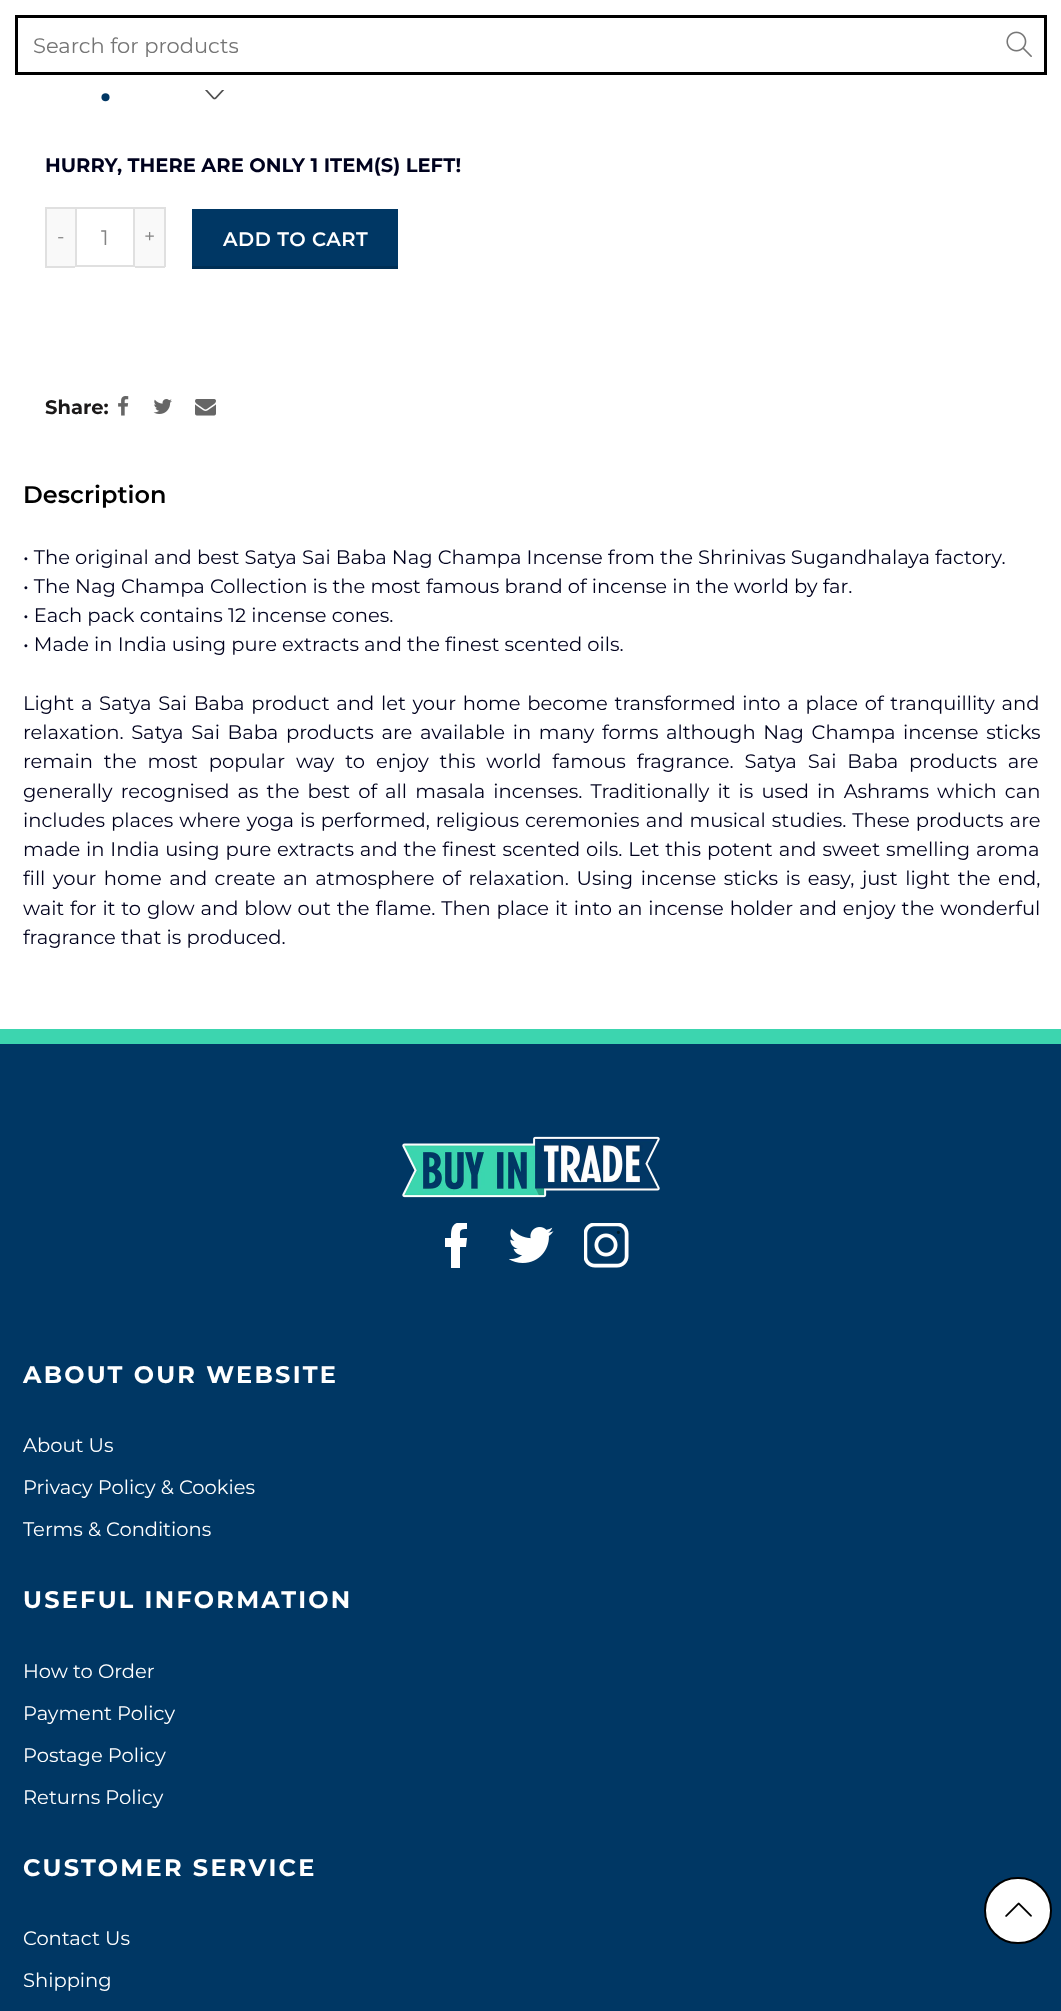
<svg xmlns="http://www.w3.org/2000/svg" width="1061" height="2011">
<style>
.a{font:21px Montserrat;fill:#757575}
.b{font:bold 42px Montserrat;fill:#003764}
.c{font:bold 19.5px Montserrat;fill:#00021e}
.d{font:19.5px Montserrat;fill:#848484}
.e{font:21px Montserrat;fill:#848484}
.f{font:600 19.5px Montserrat;letter-spacing:0.5px;fill:#fff}
.g{font:bold 19.5px Montserrat;fill:#1b1919}
.h{font:600 24px Montserrat;fill:#000}
.i{font:19.5px Montserrat;fill:#00021e}
.j{font:bold 24px Montserrat;letter-spacing:2.25px;fill:#fff}
.k{font:19.5px Montserrat;fill:#fff}
</style>
<defs>
<clipPath id="clip1"><path d="M434 1223h45v45H434z"/></clipPath>
</defs>
<rect width="100%" height="100%" fill="#fff"/>
<path fill="none" stroke="#000" stroke-width="3" d="M16.5 16.5h1029v57H16.5z"/>
<image href="1.png" x="1006" y="31" width="26" height="26"/>
<image href="2.png" x="205" y="90" width="20" height="10"/>
<path fill="#f9f9f9" d="M47 209h28v57H47z"/>
<path fill="#e0e0e0" d="M45 207h30v2H45z"/>
<path fill="#e0e0e0" d="M45 266h30v2H45z"/>
<path fill="#e0e0e0" d="M45 207h2v60H45z"/>
<path fill="none" stroke="#e0e0e0" stroke-width="2" d="M76 208h58v58H76z"/>
<path fill="#f9f9f9" d="M135 209h29v57H135z"/>
<path fill="#e0e0e0" d="M135 207h30v2H135z"/>
<path fill="#e0e0e0" d="M164 207h2v60H164z"/>
<path fill="#e0e0e0" d="M135 266h30v2H135z"/>
<path fill="#003764" d="M192 209h206v57H192z"/>
<path fill="#002f55" d="M192 266h206v3H192z"/>
<image href="3.png" x="118" y="396" width="11" height="20"/>
<image href="4.png" x="153" y="399" width="19" height="15"/>
<image href="5.png" x="195" y="399" width="21" height="17"/>
<path fill="#003764" d="M0 1044h1061v967H0z"/>
<path fill="#3cd5af" d="M0 1029h1061v15H0z"/>
<image href="6.png" x="402" y="1136" width="258" height="62"/>
<g clip-path="url(#clip1)">
<path fill="#fff" fill-rule="evenodd" d="M460 1268v-21h6l1-9h-7c0-7-1-9 7-9v-6l-6-1c-10 1-10 8-10 16h-6v9h6v21z"/>
</g>
<image href="7.png" x="509" y="1227" width="45" height="36"/>
<image href="8.png" x="584" y="1223" width="45" height="45"/>
<rect fill="#fff" stroke="#000" stroke-width="2" x="985" y="1878" width="66" height="65" rx="32.5"/>
<image href="9.png" x="1005" y="1902" width="27" height="15"/>
<text class="a" x="33" y="53">Search for products</text>
<text class="b" x="100" y="101">.</text>
<text class="c" x="45" y="172">HURRY, THERE ARE ONLY 1 ITEM(S) LEFT!</text>
<text class="d" x="57" y="243">-</text>
<text class="e" x="101" y="245">1</text>
<text class="d" x="144" y="243">+</text>
<text class="f" x="223" y="246">ADD TO CART</text>
<text class="g" x="45" y="414">Share:</text>
<text class="h" x="23" y="503">Description</text>
<text class="i" x="23" y="564">• The original and best Satya Sai Baba Nag Champa Incense from the Shrinivas Sugandhalaya factory.</text>
<text class="i" x="23" y="593">• The Nag Champa Collection is the most famous brand of incense in the world by far.</text>
<text class="i" x="23" y="622">• Each pack contains 12 incense cones.</text>
<text class="i" x="23" y="651">• Made in India using pure extracts and the finest scented oils.</text>
<text class="i" x="23" y="710" word-spacing="1.6">Light a Satya Sai Baba product and let your home become transformed into a place of tranquillity and</text>
<text class="i" x="23" y="739" word-spacing="2.5">relaxation. Satya Sai Baba products are available in many forms although Nag Champa incense sticks</text>
<text class="i" x="23" y="768" word-spacing="5.75">remain the most popular way to enjoy this world famous fragrance. Satya Sai Baba products are</text>
<text class="i" x="23" y="798" word-spacing="3">generally recognised as the best of all masala incenses. Traditionally it is used in Ashrams which can</text>
<text class="i" x="23" y="827" word-spacing="0.9">includes places where yoga is performed, religious ceremonies and musical studies. These products are</text>
<text class="i" x="23" y="856" word-spacing="0.75">made in India using pure extracts and the finest scented oils. Let this potent and sweet smelling aroma</text>
<text class="i" x="23" y="885" word-spacing="2.4">fill your home and create an atmosphere of relaxation. Using incense sticks is easy, just light the end,</text>
<text class="i" x="23" y="915" word-spacing="0.75">wait for it to glow and blow out the flame. Then place it into an incense holder and enjoy the wonderful</text>
<text class="i" x="23" y="944">fragrance that is produced.</text>
<text class="j" x="23" y="1383">ABOUT OUR WEBSITE</text>
<text class="k" x="23" y="1452">About Us</text>
<text class="k" x="23" y="1494">Privacy Policy &amp; Cookies</text>
<text class="k" x="23" y="1536">Terms &amp; Conditions</text>
<text class="j" x="23" y="1608">USEFUL INFORMATION</text>
<text class="k" x="23" y="1678">How to Order</text>
<text class="k" x="23" y="1720">Payment Policy</text>
<text class="k" x="23" y="1762">Postage Policy</text>
<text class="k" x="23" y="1804">Returns Policy</text>
<text class="j" x="23" y="1876">CUSTOMER SERVICE</text>
<text class="k" x="23" y="1945">Contact Us</text>
<text class="k" x="23" y="1987">Shipping</text>
</svg>
